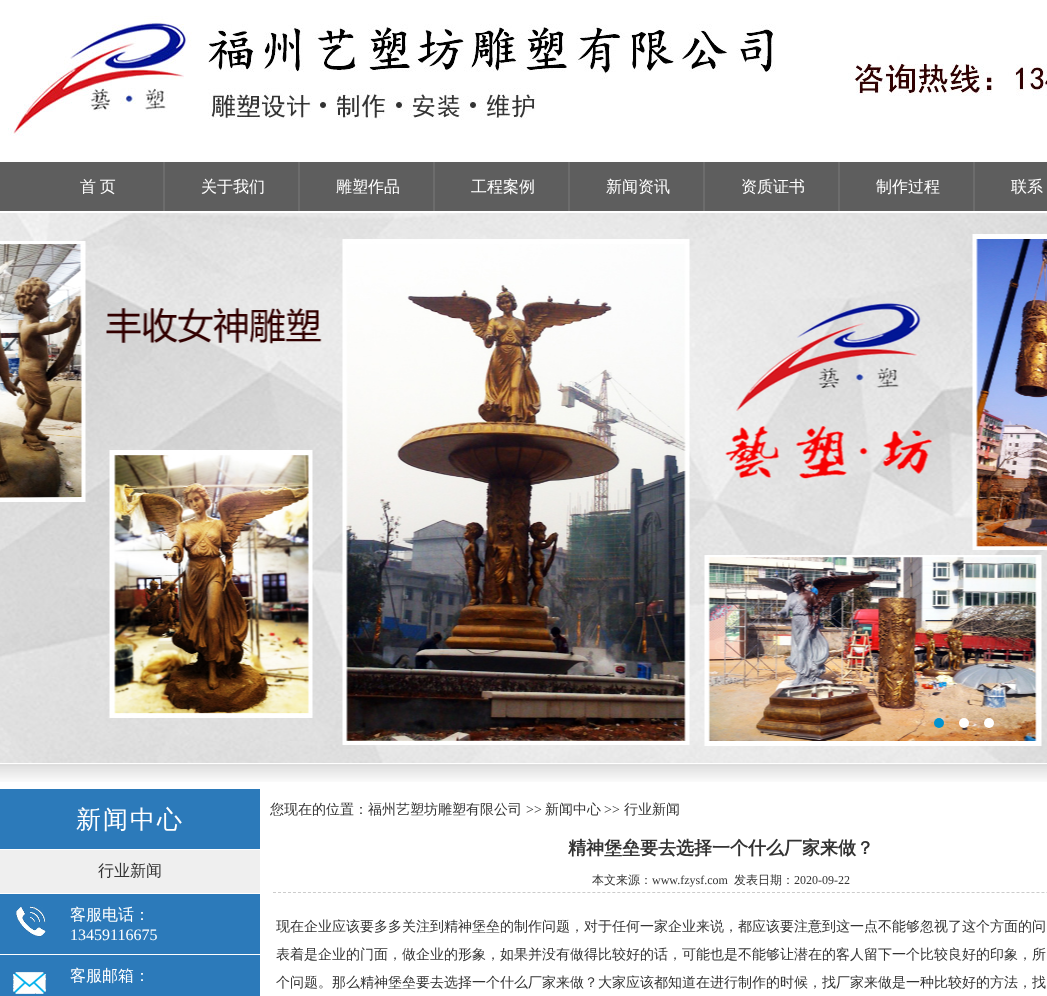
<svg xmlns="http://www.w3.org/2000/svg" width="1047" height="996">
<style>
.a{font:500 16px WenQuanYi Zen Hei;fill:#fff}
.b{font:500 25px WenQuanYi Zen Hei;letter-spacing:2px;fill:#fff}
.c{font:500 16px WenQuanYi Zen Hei;fill:#333}
.d{font:16px Liberation Serif;fill:#fff}
.e{font:500 14px WenQuanYi Zen Hei;fill:#333}
.f{font:14px Liberation Serif;fill:#333}
.g{font:bold 18px WenQuanYi Zen Hei;fill:#333}
.h{font:500 12px WenQuanYi Zen Hei;fill:#333}
.i{font:12px Liberation Serif;fill:#333}
</style>
<rect width="100%" height="100%" fill="#fff"/>
<image href="1.png" x="8" y="16" width="1039" height="120"/>
<path fill="#5e5e5e" d="M0 162h1047v49H0z"/>
<path fill="#6c6c6c" d="M163 162h2v49H163z"/>
<path fill="#6c6c6c" d="M298 162h2v49H298z"/>
<path fill="#6c6c6c" d="M433 162h2v49H433z"/>
<path fill="#6c6c6c" d="M568 162h2v49H568z"/>
<path fill="#6c6c6c" d="M703 162h2v49H703z"/>
<path fill="#6c6c6c" d="M838 162h2v49H838z"/>
<path fill="#6c6c6c" d="M973 162h2v49H973z"/>
<image href="2.png" x="0" y="213" width="1047" height="550"/>
<circle fill="#0092ce" cx="939" cy="723" r="5"/>
<circle fill="#fff" cx="964" cy="723" r="5"/>
<circle fill="#fff" cx="989" cy="723" r="5"/>
<image href="3.png" x="0" y="764" width="1047" height="18"/>
<path fill="#2c7aba" d="M0 789h260v60H0z"/>
<path fill="#efefef" d="M0 850h260v43H0z"/>
<path fill="#2c7aba" d="M0 894h260v60H0z"/>
<image href="4.png" x="16" y="906" width="30" height="31"/>
<path fill="#2c7aba" d="M0 955h260v41H0z"/>
<image href="5.png" x="13" y="972" width="33" height="22"/>
<path fill="none" stroke="#ccc" stroke-dasharray="3 1.99" d="M273 892.5h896"/>
<text class="a" x="80" y="192" word-spacing="-1">首 页</text>
<text class="a" x="201" y="192">关于我们</text>
<text class="a" x="336" y="192">雕塑作品</text>
<text class="a" x="471" y="192">工程案例</text>
<text class="a" x="606" y="192">新闻资讯</text>
<text class="a" x="741" y="192">资质证书</text>
<text class="a" x="876" y="192">制作过程</text>
<text class="a" x="1011" y="192">联系</text>
<text class="b" x="76" y="828">新闻中心</text>
<text class="c" x="98" y="876">行业新闻</text>
<text class="a" x="70" y="920">客服电话：</text>
<text class="d" x="70" y="940">13459116675</text>
<text class="a" x="70" y="981">客服邮箱：</text>
<text class="e" x="270" y="814">您现在的位置：福州艺塑坊雕塑有限公司</text>
<text class="f" x="526" y="814">&gt;&gt;</text>
<text class="e" x="545" y="814">新闻中心</text>
<text class="f" x="604" y="814">&gt;&gt;</text>
<text class="e" x="624" y="814">行业新闻</text>
<text class="g" x="568" y="854">精神堡垒要去选择一个什么厂家来做？</text>
<text class="h" x="592" y="884">本文来源：</text>
<text class="i" x="652" y="884">www.fzysf.com</text>
<text class="h" x="734" y="884">发表日期：</text>
<text class="i" x="794" y="884">2020-09-22</text>
<text class="e" x="276" y="931">现在企业应该要多多关注到精神堡垒的制作问题，对于任何一家企业来说，都应该要注意到这一点不能够忽视了这个方面的问</text>
<text class="e" x="276" y="959">表着是企业的门面，做企业的形象，如果并没有做得比较好的话，可能也是不能够让潜在的客人留下一个比较良好的印象，所</text>
<text class="e" x="276" y="987">个问题。那么精神堡垒要去选择一个什么厂家来做？大家应该都知道在进行制作的时候，找厂家来做是一种比较好的方法，找</text>
</svg>
